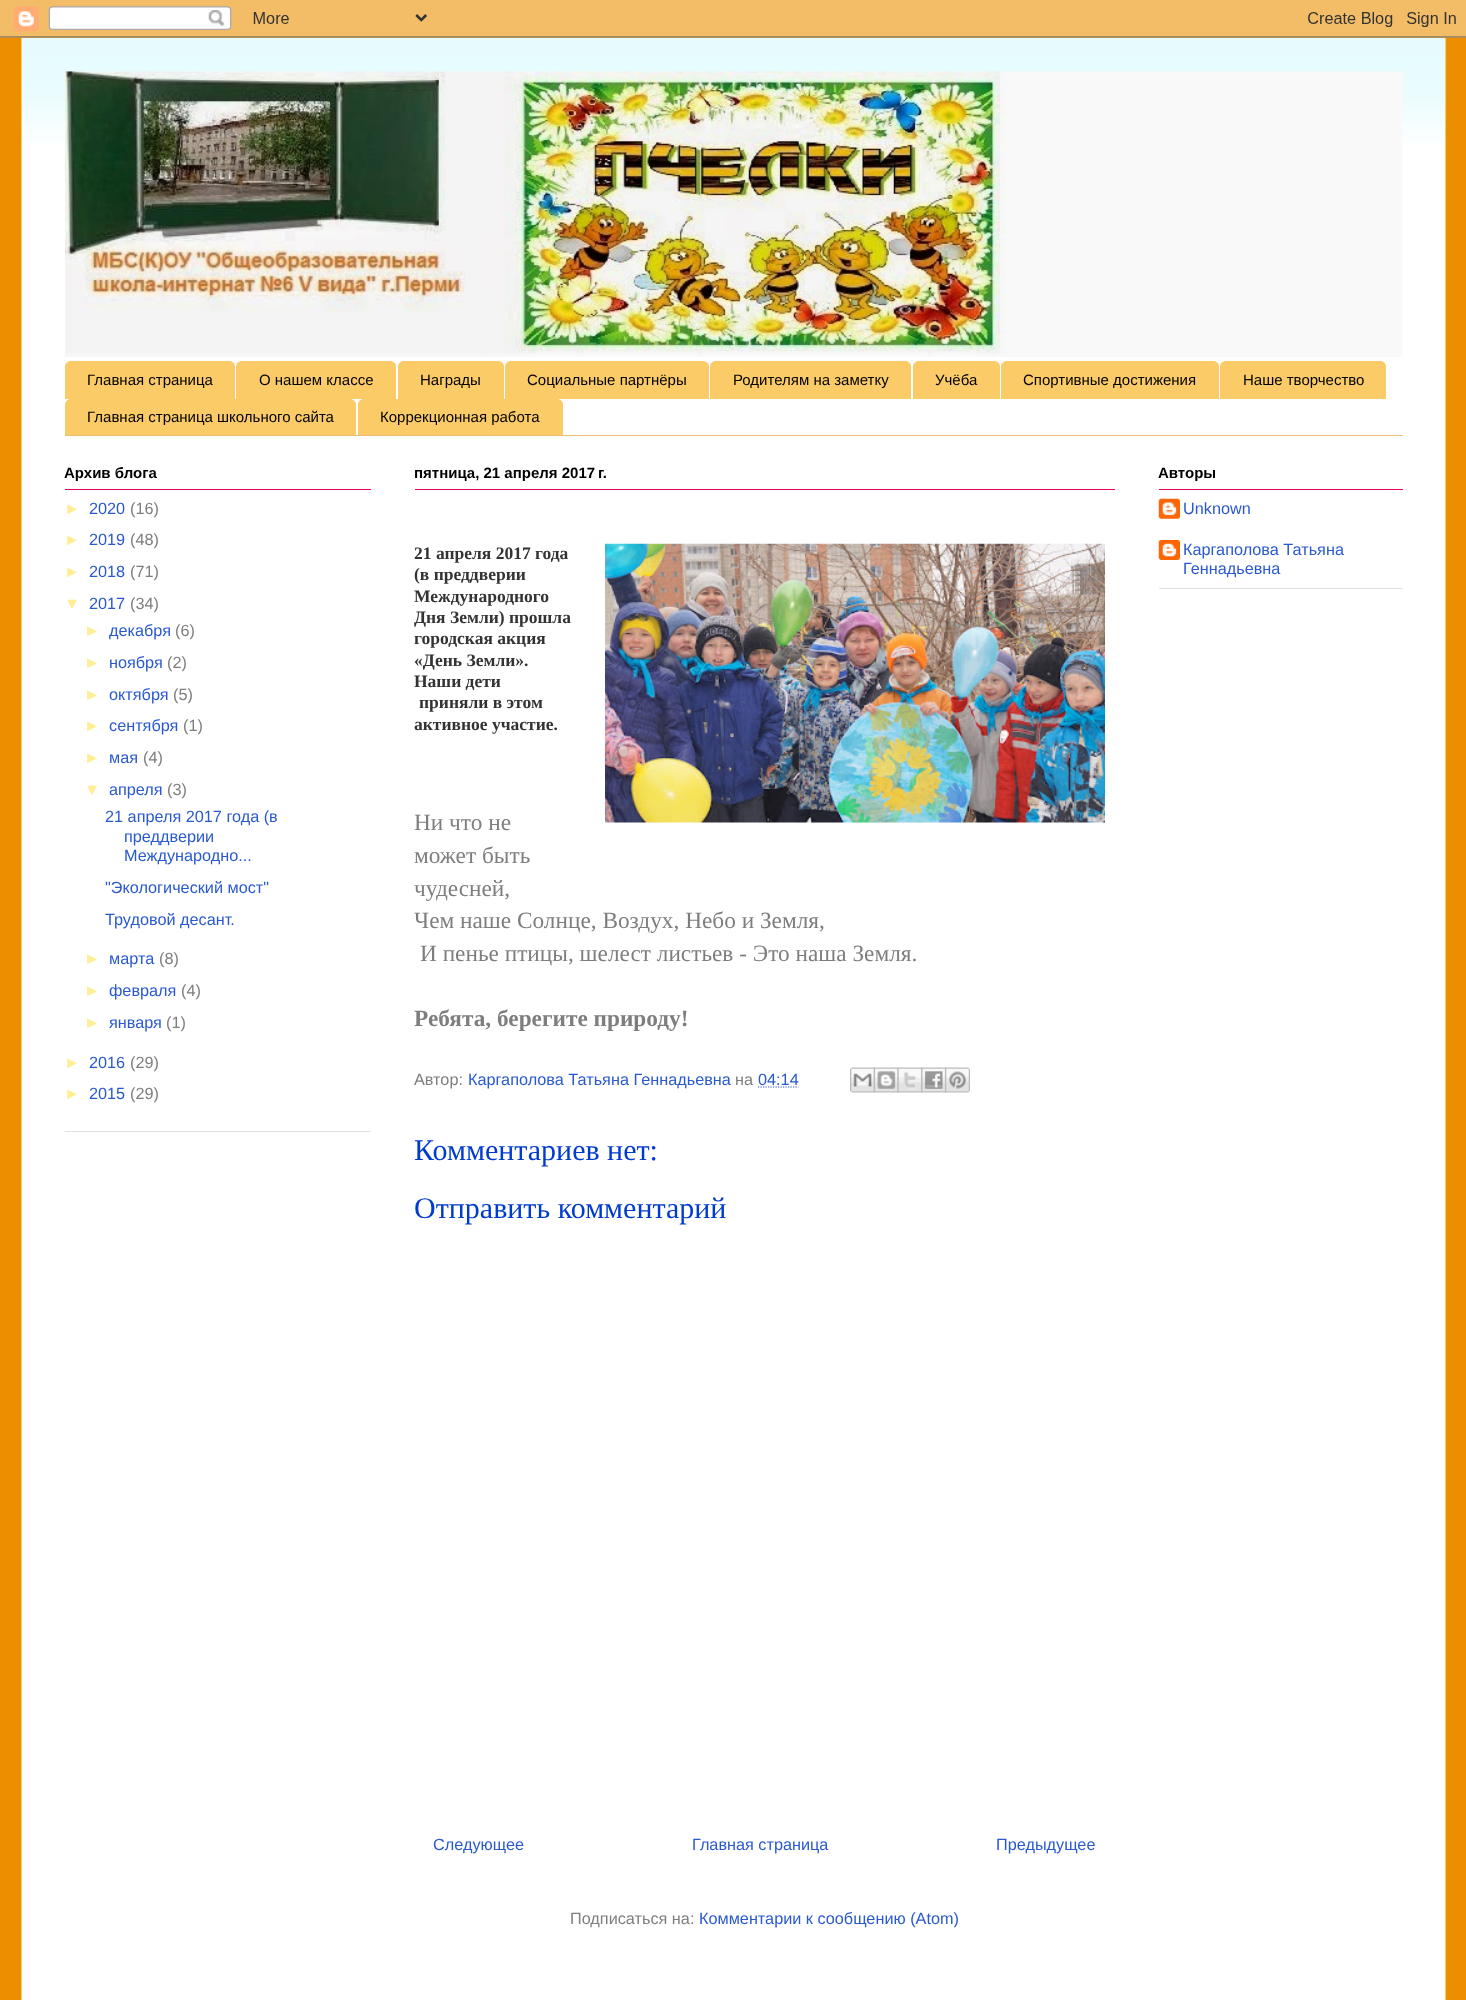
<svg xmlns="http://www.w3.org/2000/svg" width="1466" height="2000">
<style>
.a{font:15px Liberation Sans;fill:#000}
.b{font:bold 15px Liberation Sans;fill:#000}
.c{font:16.25px Liberation Sans;fill:#ffee93}
.d{font:16.25px Liberation Sans;fill:#2959d0}
.e{font:16.25px Liberation Sans;fill:#7e7e7e}
.f{font:bold 17.5px Liberation Serif;fill:#333}
.g{font:23.3px Liberation Serif;fill:#7e7e7e}
.h{font:bold 23.3px Liberation Serif;fill:#7e7e7e}
.i{font:30px Liberation Serif;fill:#003bd0}
</style>
<rect width="100%" height="100%" fill="#eb8f00"/>
<path fill="#fff" d="M22 38h1423v1962H22z"/>
<image href="2.png" x="21" y="37" width="1426" height="106"/>
<image href="1.png" x="0" y="0" width="1466" height="38"/>
<path fill="#fbcb68" d="M1445 38h1v1962H1445z"/>
<path fill="#fbcb68" d="M21 38h1v1962H21z"/>
<image href="3.png" x="65" y="71" width="1338" height="286"/>
<path fill="#ebbd75" d="M65 435h1338v1H65z"/>
<path fill="#fbcb68" d="M71 361h158c3.5 0 6 2.5 6 6v32h-170v-32c0-3.5 2.5-6 6-6z"/>
<path fill="#fbcb68" d="M242 361h148c3.5 0 6 2.5 6 6v32h-160v-32c0-3.5 2.5-6 6-6z"/>
<path fill="#fbcb68" d="M404 361h94c3.5 0 6 2.5 6 6v32h-106v-32c0-3.5 2.5-6 6-6z"/>
<path fill="#fbcb68" d="M511 361h192c3.5 0 6 2.5 6 6v32h-204v-32c0-3.5 2.5-6 6-6z"/>
<path fill="#fbcb68" d="M716 361h189c3.5 0 6 2.5 6 6v32h-201v-32c0-3.5 2.5-6 6-6z"/>
<path fill="#fbcb68" d="M919 361h75c3.5 0 6 2.5 6 6v32h-87v-32c0-3.5 2.5-6 6-6z"/>
<path fill="#fbcb68" d="M1007 361h206c3.5 0 6 2.5 6 6v32h-218v-32c0-3.5 2.5-6 6-6z"/>
<path fill="#fbcb68" d="M1226 361h154c3.5 0 6 2.5 6 6v32h-166v-32c0-3.5 2.5-6 6-6z"/>
<path fill="#fbcb68" d="M71 399h279c3.5 0 6 2.5 6 6v30h-291v-30c0-3.5 2.5-6 6-6z"/>
<path fill="#fbcb68" d="M364 399h193c3.5 0 6 2.5 6 6v30h-205v-30c0-3.5 2.5-6 6-6z"/>
<path fill="#e1e1e1" d="M65 1131h306v1H65z"/>
<path fill="#eb005c" d="M65 489h306v1H65z"/>
<path fill="#eb005c" d="M415 489h700v1H415z"/>
<image href="4.png" x="605" y="543" width="500" height="280"/>
<path fill="none" stroke="#2959d0" stroke-width="1.2" stroke-dasharray="1.25 1.25" d="M758 1087h40.5"/>
<image href="5.png" x="850" y="1067" width="25" height="26"/>
<image href="6.png" x="873" y="1067" width="26" height="26"/>
<image href="7.png" x="897" y="1067" width="26" height="26"/>
<image href="8.png" x="921" y="1067" width="26" height="26"/>
<image href="9.png" x="945" y="1067" width="25" height="26"/>
<path fill="#e1e1e1" d="M1159 588h244v1H1159z"/>
<path fill="#eb005c" d="M1159 489h244v1H1159z"/>
<image href="10.png" x="1158" y="498" width="22" height="21"/>
<image href="11.png" x="1158" y="540" width="22" height="20"/>
<text class="a" x="87" y="385">Главная страница</text>
<text class="a" x="259" y="385">О нашем классе</text>
<text class="a" x="420" y="385">Награды</text>
<text class="a" x="527" y="385">Социальные партнёры</text>
<text class="a" x="733" y="385">Родителям на заметку</text>
<text class="a" x="935" y="385">Учёба</text>
<text class="a" x="1023" y="385">Спортивные достижения</text>
<text class="a" x="1243" y="385">Наше творчество</text>
<text class="a" x="87" y="422">Главная страница школьного сайта</text>
<text class="a" x="380" y="422">Коррекционная работа</text>
<text class="b" x="64" y="478">Архив блога</text>
<text class="c" x="64" y="514">►</text>
<text class="d" x="89" y="514">2020</text>
<text class="e" x="130" y="514">(16)</text>
<text class="c" x="64" y="545">►</text>
<text class="d" x="89" y="545">2019</text>
<text class="e" x="130" y="545">(48)</text>
<text class="c" x="64" y="577">►</text>
<text class="d" x="89" y="577">2018</text>
<text class="e" x="130" y="577">(71)</text>
<text class="c" x="64" y="609">▼</text>
<text class="d" x="89" y="609">2017</text>
<text class="e" x="130" y="609">(34)</text>
<text class="c" x="84" y="636">►</text>
<text class="d" x="109" y="636">декабря</text>
<text class="e" x="175" y="636">(6)</text>
<text class="c" x="84" y="668">►</text>
<text class="d" x="109" y="668">ноября</text>
<text class="e" x="167" y="668">(2)</text>
<text class="c" x="84" y="700">►</text>
<text class="d" x="109" y="700">октября</text>
<text class="e" x="173" y="700">(5)</text>
<text class="c" x="84" y="731">►</text>
<text class="d" x="109" y="731">сентября</text>
<text class="e" x="183" y="731">(1)</text>
<text class="c" x="84" y="763">►</text>
<text class="d" x="109" y="763">мая</text>
<text class="e" x="143" y="763">(4)</text>
<text class="c" x="84" y="795">▼</text>
<text class="d" x="109" y="795">апреля</text>
<text class="e" x="167" y="795">(3)</text>
<text class="d" x="105" y="822">21 апреля 2017 года (в</text>
<text class="d" x="124" y="842">преддверии</text>
<text class="d" x="124" y="861">Международно...</text>
<text class="d" x="105" y="893">"Экологический мост"</text>
<text class="d" x="105" y="925">Трудовой десант.</text>
<text class="c" x="84" y="964">►</text>
<text class="d" x="109" y="964">марта</text>
<text class="e" x="159" y="964">(8)</text>
<text class="c" x="84" y="996">►</text>
<text class="d" x="109" y="996">февраля</text>
<text class="e" x="181" y="996">(4)</text>
<text class="c" x="84" y="1028">►</text>
<text class="d" x="109" y="1028">января</text>
<text class="e" x="166" y="1028">(1)</text>
<text class="c" x="64" y="1068">►</text>
<text class="d" x="89" y="1068">2016</text>
<text class="e" x="130" y="1068">(29)</text>
<text class="c" x="64" y="1099">►</text>
<text class="d" x="89" y="1099">2015</text>
<text class="e" x="130" y="1099">(29)</text>
<text class="b" x="414" y="478">пятница, 21 апреля 2017 г.</text>
<text class="f" x="414" y="559">21 апреля 2017 года</text>
<text class="f" x="414" y="580">(в преддверии</text>
<text class="f" x="414" y="602">Международного</text>
<text class="f" x="414" y="623">Дня Земли) прошла</text>
<text class="f" x="414" y="644">городская акция</text>
<text class="f" x="414" y="666">«День Земли».</text>
<text class="f" x="414" y="687">Наши дети</text>
<text class="f" x="419" y="708">приняли в этом</text>
<text class="f" x="414" y="730">активное участие.</text>
<text class="g" x="414" y="830">Ни что не</text>
<text class="g" x="414" y="863">может быть</text>
<text class="g" x="414" y="896">чудесней,</text>
<text class="g" x="414" y="928">Чем наше Солнце, Воздух, Небо и Земля,</text>
<text class="g" x="420" y="961">И пенье птицы, шелест листьев - Это наша Земля.</text>
<text class="h" x="414" y="1026">Ребята, берегите природу!</text>
<text class="e" x="414" y="1085">Автор:</text>
<text class="d" x="468" y="1085">Каргаполова Татьяна Геннадьевна</text>
<text class="e" x="735" y="1085">на</text>
<text class="d" x="758" y="1085">04:14</text>
<text class="i" x="414" y="1160">Комментариев нет:</text>
<text class="i" x="414" y="1218">Отправить комментарий</text>
<text class="d" x="433" y="1850">Следующее</text>
<text class="d" x="692" y="1850">Главная страница</text>
<text class="d" x="996" y="1850">Предыдущее</text>
<text class="e" x="570" y="1924">Подписаться на:</text>
<text class="d" x="699" y="1924">Комментарии к сообщению (Atom)</text>
<text class="b" x="1158" y="478">Авторы</text>
<text class="d" x="1183" y="514">Unknown</text>
<text class="d" x="1183" y="555">Каргаполова Татьяна</text>
<text class="d" x="1183" y="574">Геннадьевна</text>
</svg>
